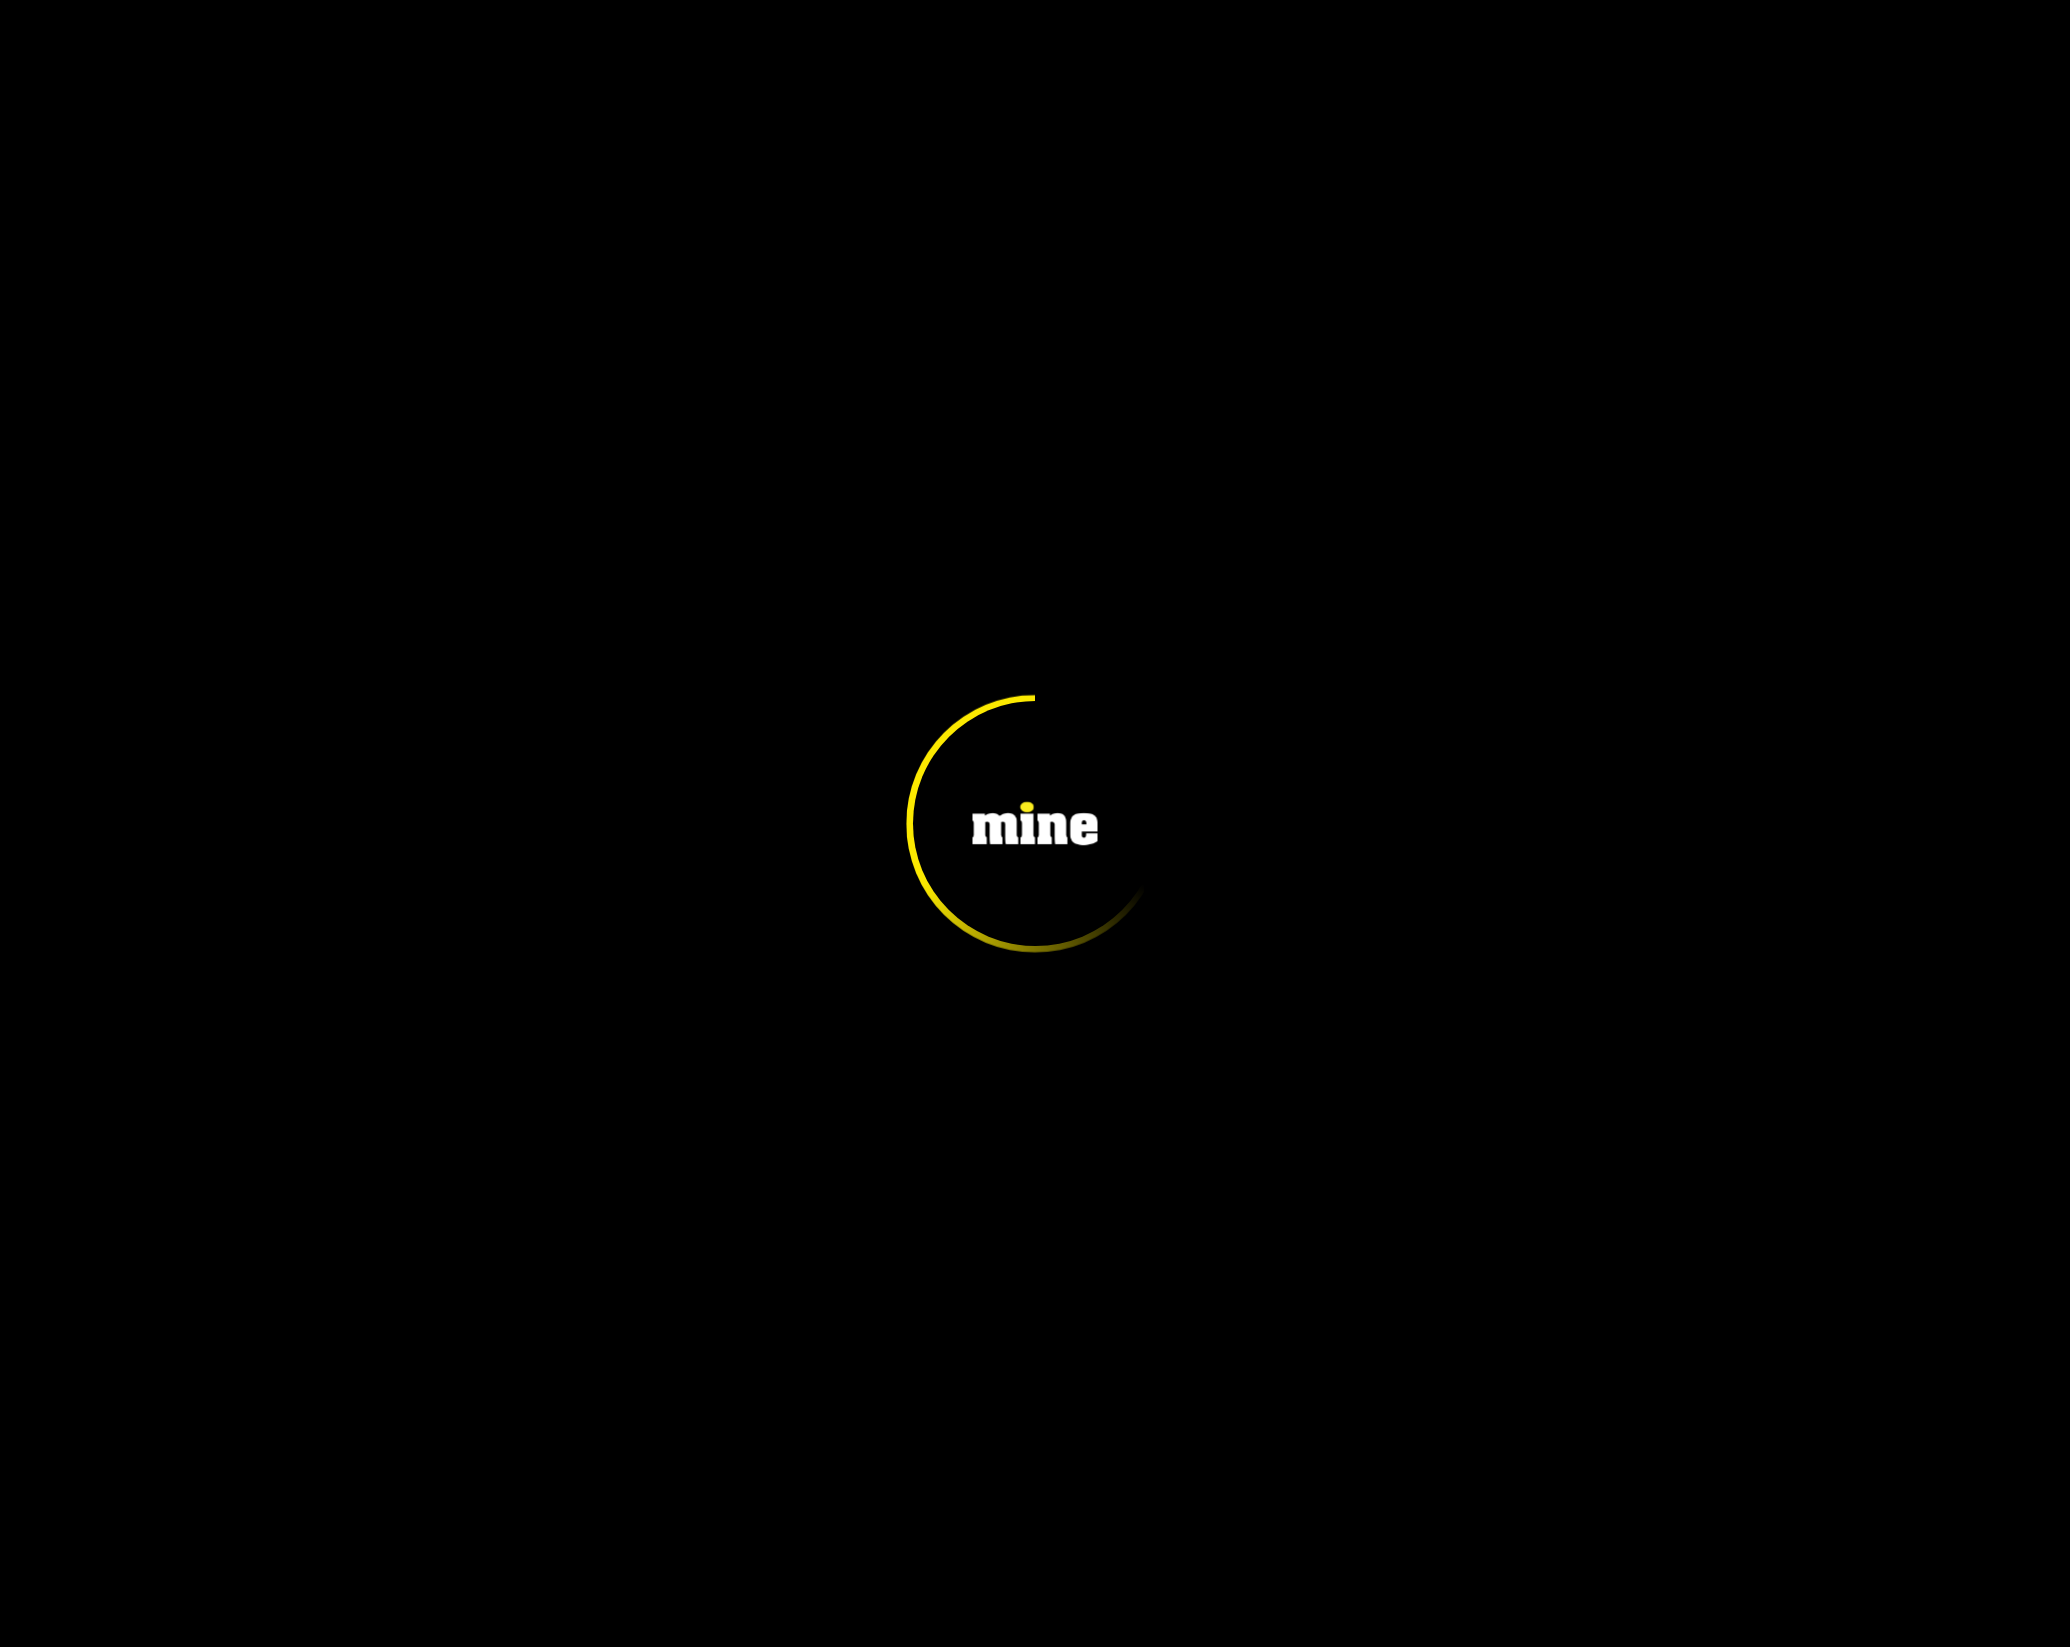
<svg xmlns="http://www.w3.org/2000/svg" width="2070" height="1647">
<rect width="100%" height="100%" fill="#000"/>
<image href="1.png" x="906" y="694" width="238" height="259"/>
<circle fill="#000" cx="1035.5" cy="823.5" r="122.5"/>
<image href="2.png" x="972" y="801" width="126" height="45"/>
</svg>
